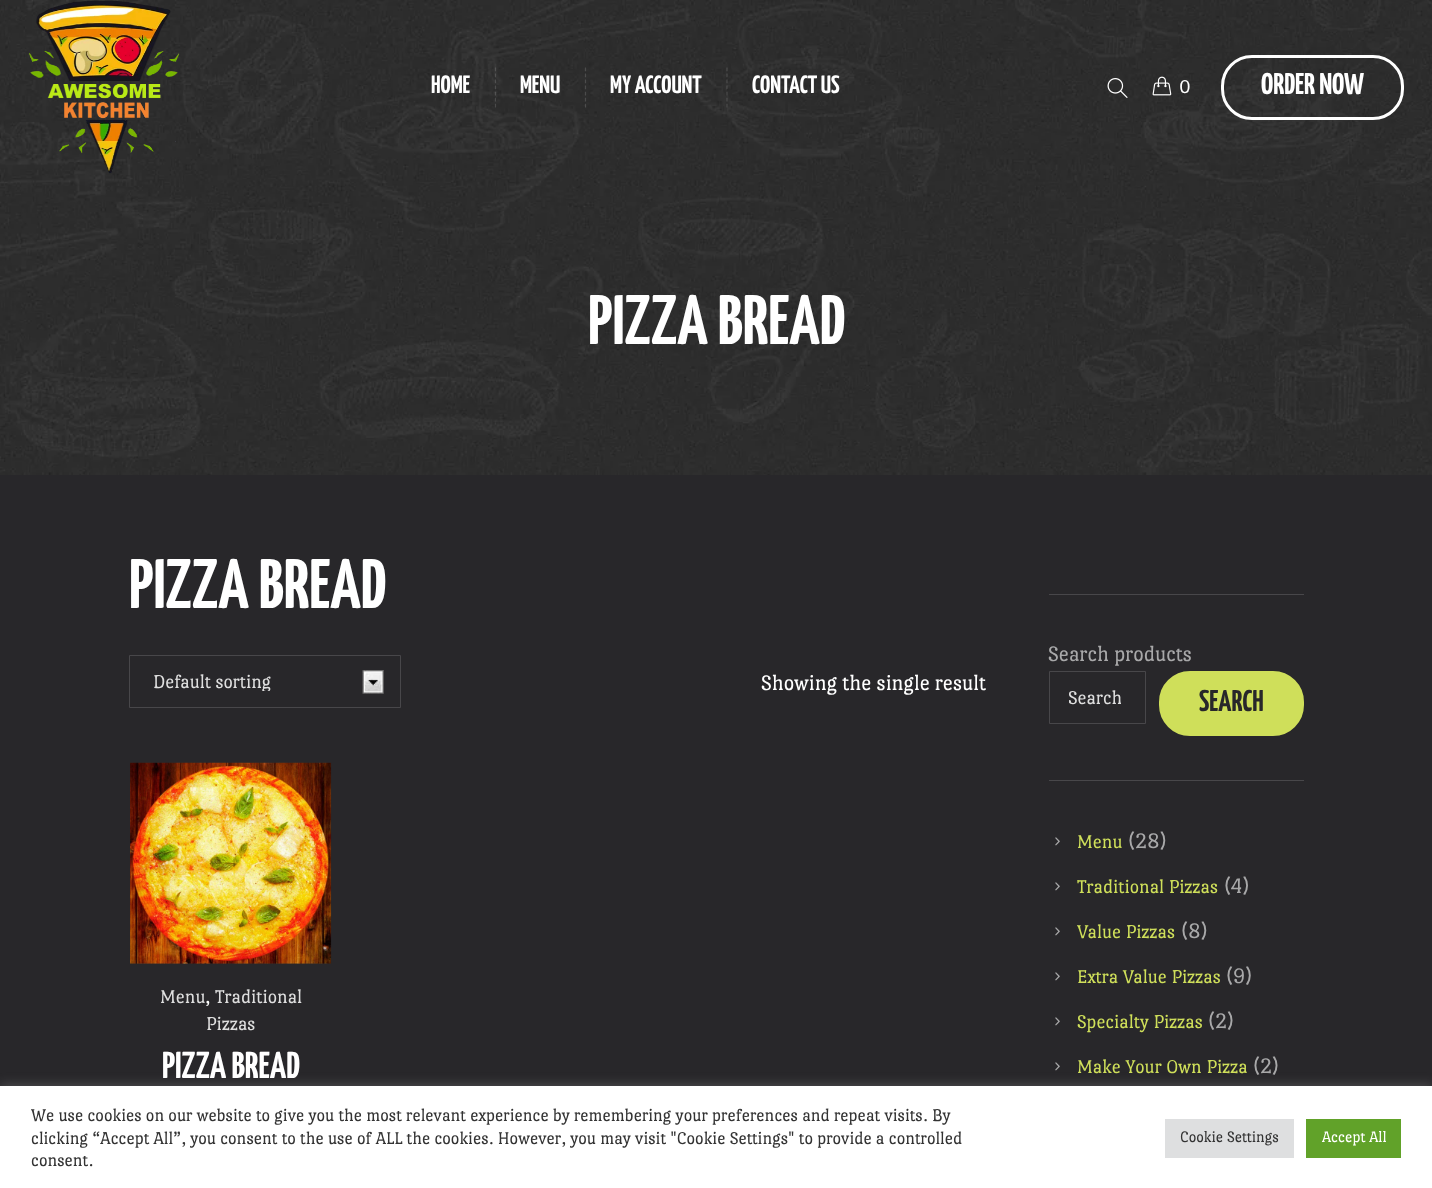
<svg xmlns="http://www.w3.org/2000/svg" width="1432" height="1188">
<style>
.a{font:bold 25px Yanone Kaffeesatz;fill:#fff}
.b{font:20px Port Lligat Slab;fill:#fff}
.c{font:bold 30px Yanone Kaffeesatz;fill:#fff}
.d{font:bold 70px Yanone Kaffeesatz;fill:#fff}
.e{font:20px Port Lligat Slab;fill:#dfdfdf}
.f{font:22.5px Port Lligat Slab;fill:#fff}
.g{font:bold 37.5px Yanone Kaffeesatz;fill:#fff}
.h{font:22.5px Port Lligat Slab;fill:#a8a8a9}
.i{font:bold 30px Yanone Kaffeesatz;fill:#28272a}
.j{font:20px Port Lligat Slab;fill:#cfdf5a}
.k{font:18.33px Port Lligat Slab;fill:#333}
.l{font:16.25px Port Lligat Slab;fill:#333}
.m{font:16.25px Port Lligat Slab;fill:#fff}
</style>
<defs>
<clipPath id="clip1"><path d="M153 671h197v20H153z"/></clipPath>
<clipPath id="clip2"><path d="M1069 688h52v21H1069z"/></clipPath>
</defs>
<rect width="100%" height="100%" fill="#28272a"/>
<image href="4.png" x="0" y="0" width="1432" height="475"/>
<image href="1.png" x="28" y="0" width="152" height="174"/>
<path fill="none" stroke="#ffffff26" stroke-width="1.2" stroke-dasharray="3.75 2.29" d="M495.5 67.5v40"/>
<path fill="none" stroke="#ffffff26" stroke-width="1.2" stroke-dasharray="3.75 2.29" d="M585.5 67.5v40"/>
<path fill="none" stroke="#ffffff26" stroke-width="1.2" stroke-dasharray="3.75 2.29" d="M727 67.5v40"/>
<image href="2.png" x="1107" y="78" width="21" height="20"/>
<image href="3.png" x="1152" y="76" width="20" height="20"/>
<rect fill="none" stroke="#fff" stroke-width="3" x="1222.5" y="56.5" width="180" height="62" rx="29.5"/>
<image href="5.png" x="362" y="670" width="22" height="24"/>
<path fill="none" stroke="#48474a" d="M129.5 655.5h271v52H129.5z"/>
<image href="6.png" x="130" y="762" width="202" height="202"/>
<path fill="#48474a" d="M1049 594h255v1H1049z"/>
<path fill="#48474a" d="M1049 780h255v1H1049z"/>
<path fill="none" stroke="#48474a" d="M1049.5 671.5h96v52H1049.5z"/>
<rect fill="#cfdf5a" stroke="#cfdf5a" stroke-width="3" x="1160.5" y="672.5" width="142" height="62" rx="29.5"/>
<image href="7.png" x="1055" y="837" width="5" height="9"/>
<image href="7.png" x="1055" y="882" width="5" height="9"/>
<image href="7.png" x="1055" y="927" width="5" height="9"/>
<image href="7.png" x="1055" y="972" width="5" height="9"/>
<image href="7.png" x="1055" y="1017" width="5" height="9"/>
<image href="7.png" x="1055" y="1062" width="5" height="9"/>
<path fill="#acabab4d" filter="blur(6px)" d="M0 1085h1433v103H0z"/>
<path fill="#fff" d="M0 1086h1432v102H0z"/>
<path fill="#dedfe0" d="M1165 1119h129v39H1165z"/>
<path fill="#61a229" d="M1306 1119h95v39H1306z"/>
<text class="a" x="431" y="93">HOME</text>
<text class="a" x="520" y="93">MENU</text>
<text class="a" x="610" y="93">MY ACCOUNT</text>
<text class="a" x="752" y="93">CONTACT US</text>
<text class="b" x="1179" y="93">0</text>
<text class="c" x="1261" y="94">ORDER NOW</text>
<text class="d" x="588" y="344">PIZZA BREAD</text>
<text class="d" x="129" y="608">PIZZA BREAD</text>
<g clip-path="url(#clip1)">
<text class="e" x="153" y="688">Default sorting</text>
</g>
<text class="f" x="761" y="690">Showing the single result</text>
<text class="e" x="160" y="1003">Menu</text>
<text class="b" x="205" y="1003">,</text>
<text class="e" x="215" y="1003">Traditional</text>
<text class="e" x="206" y="1030">Pizzas</text>
<text class="g" x="162" y="1078">PIZZA BREAD</text>
<text class="h" x="1048" y="661">Search products</text>
<g clip-path="url(#clip2)">
<text class="e" x="1068" y="704">Search</text>
</g>
<text class="i" x="1199" y="711">SEARCH</text>
<text class="j" x="1077" y="848">Menu</text>
<text class="h" x="1128" y="848">(28)</text>
<text class="j" x="1077" y="893">Traditional Pizzas</text>
<text class="h" x="1224" y="893">(4)</text>
<text class="j" x="1077" y="938">Value Pizzas</text>
<text class="h" x="1181" y="938">(8)</text>
<text class="j" x="1077" y="983">Extra Value Pizzas</text>
<text class="h" x="1226" y="983">(9)</text>
<text class="j" x="1077" y="1028">Specialty Pizzas</text>
<text class="h" x="1208" y="1028">(2)</text>
<text class="j" x="1077" y="1073">Make Your Own Pizza</text>
<text class="h" x="1253" y="1073">(2)</text>
<text class="k" x="31" y="1121">We use cookies on our website to give you the most relevant experience by remembering your preferences and repeat visits. By</text>
<text class="k" x="31" y="1144">clicking “Accept All”, you consent to the use of ALL the cookies. However, you may visit "Cookie Settings" to provide a controlled</text>
<text class="k" x="31" y="1166">consent.</text>
<text class="l" x="1180" y="1142">Cookie Settings</text>
<text class="m" x="1322" y="1142">Accept All</text>
</svg>
